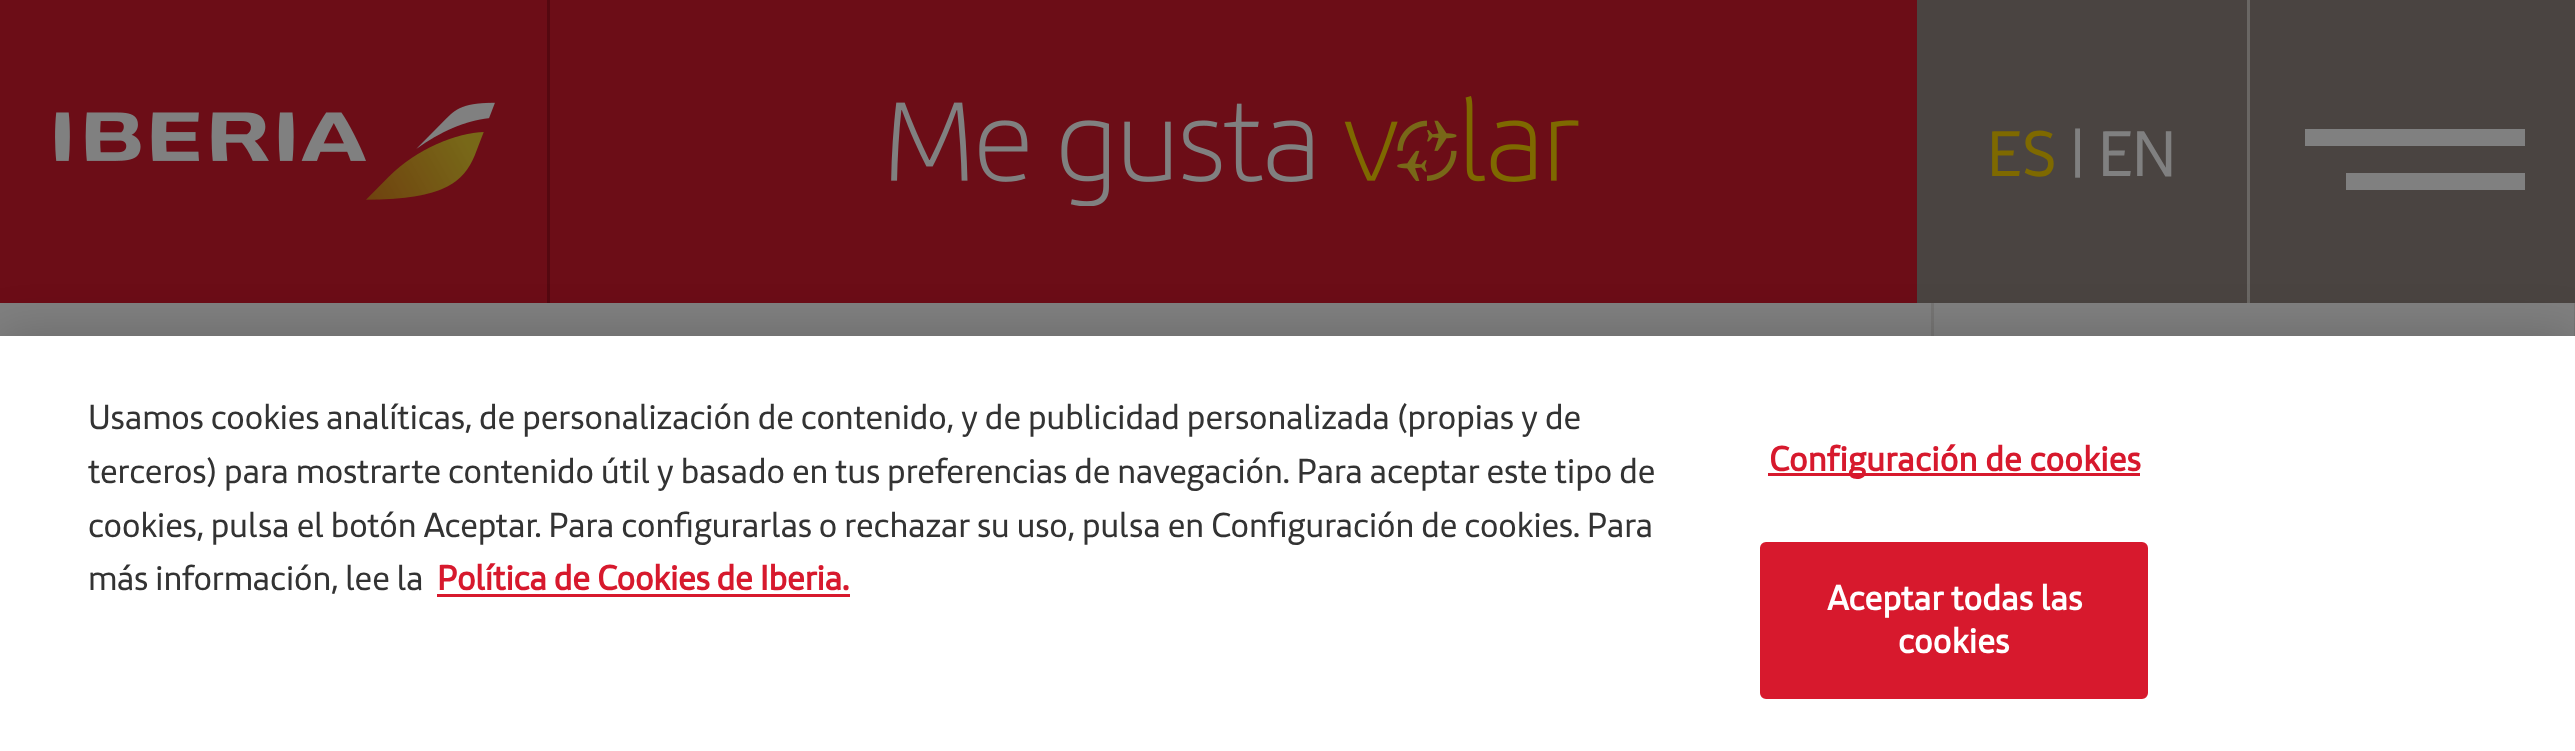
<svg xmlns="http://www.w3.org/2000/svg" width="2575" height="751">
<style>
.a{font:66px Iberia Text;fill:#7e6900}
.b{font:66px Iberia Text;fill:#808080}
.c{font:35.75px Iberia Text;fill:#333}
.d{font:bold 35.75px Iberia Text;fill:#d7192d}
.e{font:bold 35.75px Iberia Text;letter-spacing:0.4px;fill:#d7192d}
.f{font:bold 35.75px Iberia Text;letter-spacing:0.4px;fill:#fff}
</style>
<rect width="100%" height="100%" fill="#808080"/>
<path fill="#6c0d17" d="M0 0h1917v303H0z"/>
<path fill="#540810" d="M547 0h3v303H547z"/>
<image href="1.png" x="55" y="102" width="440" height="98"/>
<image href="2.png" x="891" y="96" width="688" height="110"/>
<path fill="#4a4441" d="M1917 0h330v303H1917z"/>
<path fill="#4a4441" d="M2250 0h325v303H2250z"/>
<path fill="#6a6764" d="M2247 0h3v303H2247z"/>
<path fill="#808080" d="M2305 129h220v17H2305z"/>
<path fill="#808080" d="M2346 173h179v17H2346z"/>
<path fill="#767574" d="M2574 303h1v33H2574z"/>
<path fill="#767574" d="M1931 303h3v33H1931z"/>
<path fill="#00000033" filter="blur(25px)" d="M0 336h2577v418H0z"/>
<path fill="#fff" d="M0 336h2575v415H0z"/>
<path fill="#d7192d" d="M437 594h413v3H437z"/>
<path fill="#d7192d" d="M1768 473h372v3H1768z"/>
<rect fill="#d7192d" stroke="#d7192d" stroke-width="3" x="1761.5" y="543.5" width="385" height="154" rx="4.5"/>
<text class="a" x="1987" y="176">ES</text>
<text class="b" x="2070" y="176">|</text>
<text class="b" x="2098" y="176">EN</text>
<text class="c" x="88" y="429">Usamos cookies analíticas, de personalización de contenido, y de publicidad personalizada (propias y de</text>
<text class="c" x="88" y="483">terceros) para mostrarte contenido útil y basado en tus preferencias de navegación. Para aceptar este tipo de</text>
<text class="c" x="88" y="537">cookies, pulsa el botón Aceptar. Para configurarlas o rechazar su uso, pulsa en Configuración de cookies. Para</text>
<text class="c" x="88" y="590">más información, lee la</text>
<text class="d" x="437" y="590">Política de Cookies de Iberia.</text>
<text class="e" x="1769" y="471">Configuración de cookies</text>
<text class="f" x="1827" y="610">Aceptar todas las</text>
<text class="f" x="1898" y="653">cookies</text>
</svg>
